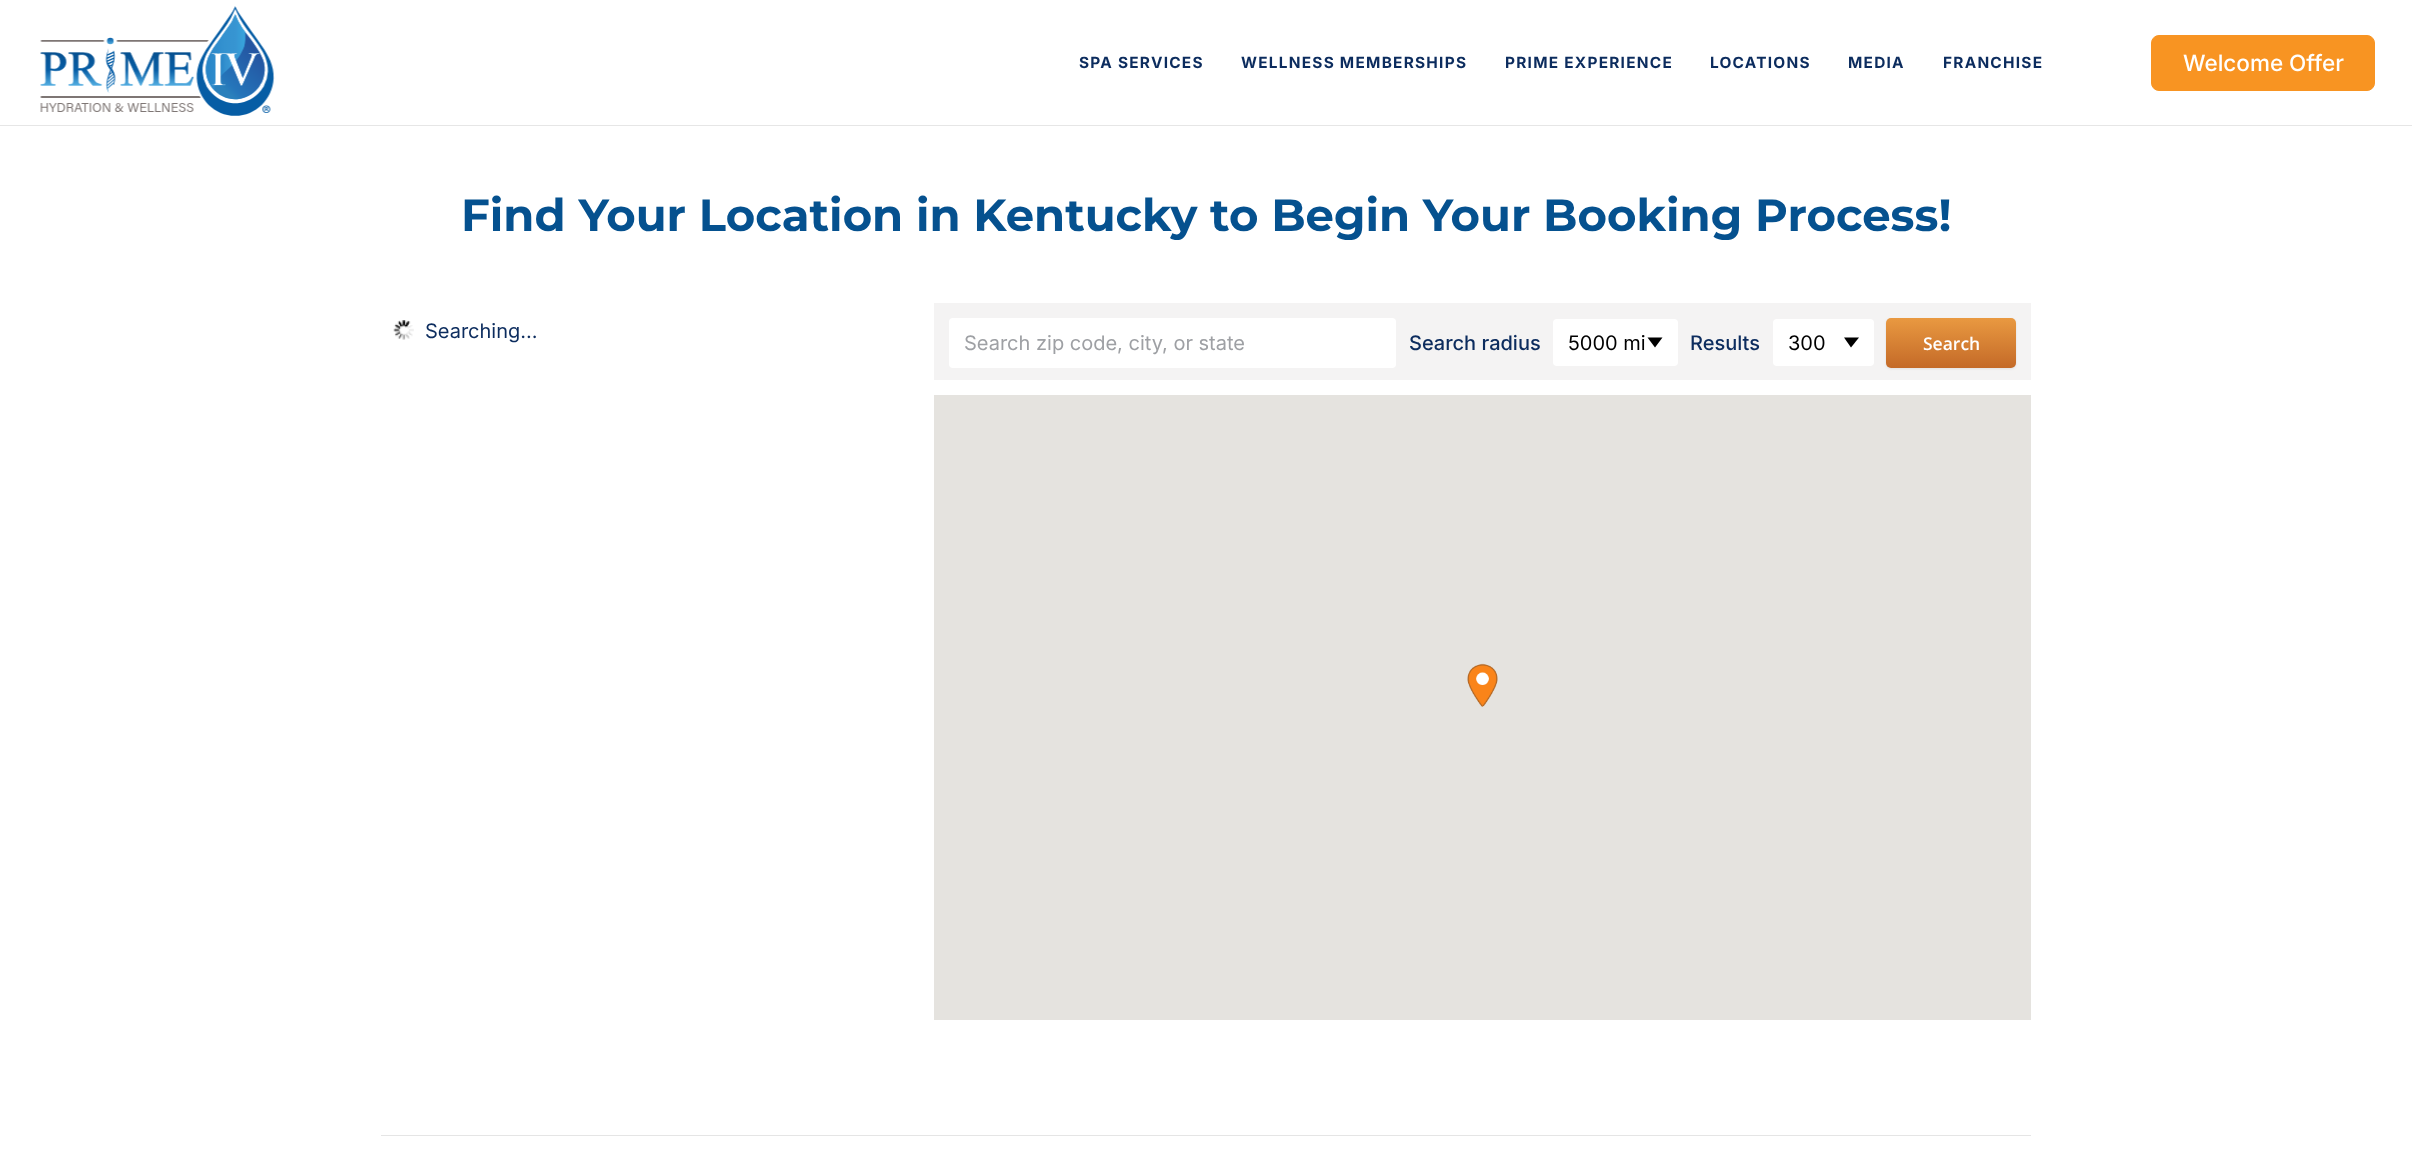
<svg xmlns="http://www.w3.org/2000/svg" width="2412" height="1155">
<style>
.a{font:bold 15.4px Inter;letter-spacing:1.25px;fill:#0c2c5e}
.b{font:500 22.5px Inter;fill:#fff}
.c{font:bold 45px Montserrat;fill:#05518f}
.d{font:20px Inter;fill:#0c2c5e}
.e{font:20px Inter;fill:#9ea0a4}
.f{font:500 20px Inter;fill:#0c2c5e}
.g{font:20px Inter;fill:#000}
.h{font:600 17.5px Open Sans;fill:#fff}
</style>
<defs>
<linearGradient id="g1" gradientUnits="userSpaceOnUse" x1="1951" y1="368" x2="1951" y2="318"><stop offset="0" stop-color="#c46a28"/><stop offset="1" stop-color="#e99941"/></linearGradient>
</defs>
<rect width="100%" height="100%" fill="#fff"/>
<path fill="#e6e6e6" d="M0 125h2412v1H0z"/>
<image href="1.png" x="40" y="6" width="235" height="110"/>
<rect fill="#f89422" stroke="#f89422" x="2151.5" y="35.5" width="223" height="55" rx="7.5"/>
<image href="2.png" x="393" y="320" width="21" height="20"/>
<path fill="#f4f3f3" d="M934 303h1097v77H934z"/>
<rect fill="#fff" x="949" y="318" width="447" height="50" rx="4"/>
<rect fill="#fff" x="1553" y="319" width="125" height="47" rx="4"/>
<path fill="#000" d="M1647.5 337.5h15l-7.5 10z"/>
<rect fill="#fff" x="1773" y="319" width="101" height="47" rx="4"/>
<path fill="#000" d="M1844 337.5h15l-8 10z"/>
<rect fill="#4040401a" filter="blur(1px)" x="1886" y="319" width="130" height="50" rx="5"/>
<rect fill="url(#g1)" x="1886" y="318" width="130" height="50" rx="5"/>
<path fill="#e5e3df" d="M934 395h1097v625H934z"/>
<image href="3.png" x="1467" y="663" width="31" height="44"/>
<path fill="#e5e5e5" d="M381 1135h1650v1H381z"/>
<text class="a" x="1079" y="68">SPA SERVICES</text>
<text class="a" x="1241" y="68">WELLNESS MEMBERSHIPS</text>
<text class="a" x="1505" y="68">PRIME EXPERIENCE</text>
<text class="a" x="1710" y="68">LOCATIONS</text>
<text class="a" x="1848" y="68">MEDIA</text>
<text class="a" x="1943" y="68">FRANCHISE</text>
<text class="b" x="2183" y="71">Welcome Offer</text>
<text class="c" x="461" y="231">Find Your Location in Kentucky to Begin Your Booking Process!</text>
<text class="d" x="425" y="338">Searching...</text>
<text class="e" x="964" y="350">Search zip code, city, or state</text>
<text class="f" x="1409" y="350">Search radius</text>
<text class="g" x="1568" y="350">5000 mi</text>
<text class="f" x="1690" y="350">Results</text>
<text class="g" x="1788" y="350">300</text>
<text class="h" x="1923" y="350">Search</text>
</svg>
